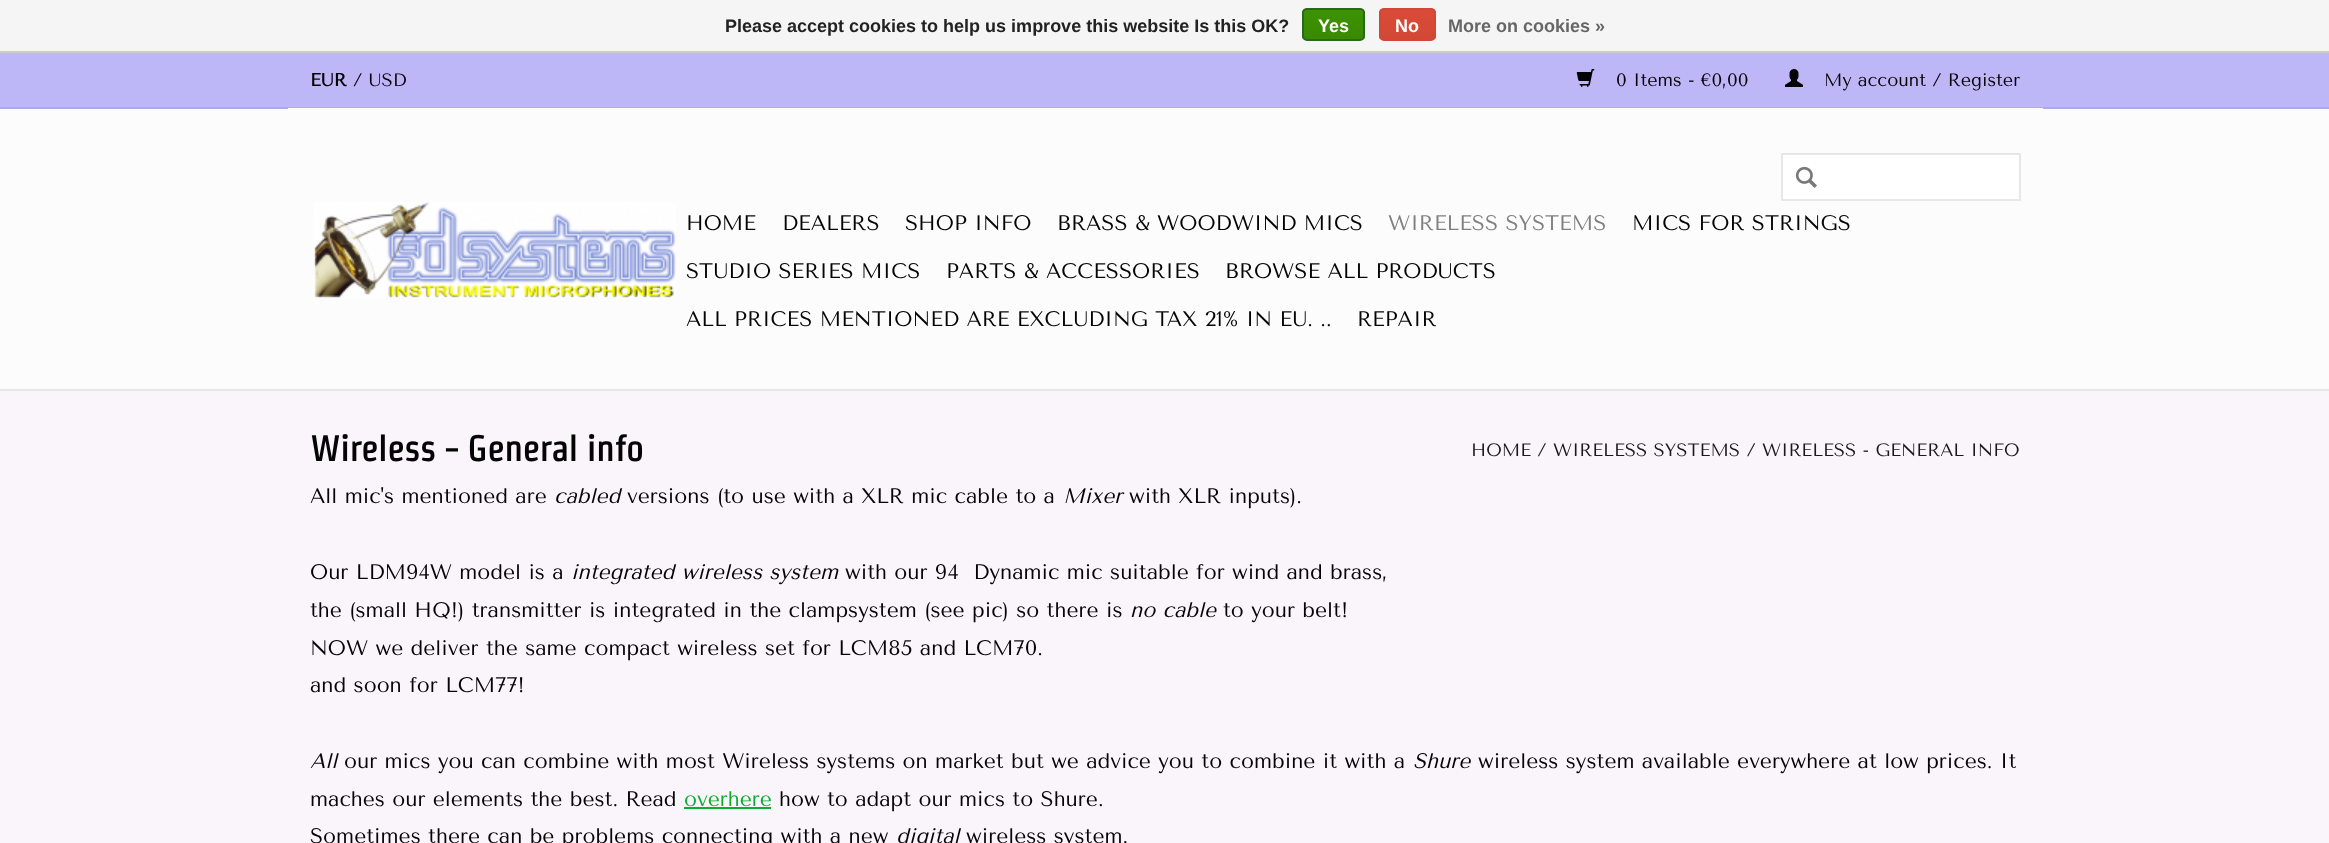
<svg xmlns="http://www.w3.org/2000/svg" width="2329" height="843">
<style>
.a{font:bold 18px Liberation Sans;fill:#222}
.b{font:bold 18px Liberation Sans;fill:#fff}
.c{font:bold 18px Liberation Sans;fill:#666}
.d{font:bold 18px Tenor Sans;fill:#050405}
.e{font:18px Tenor Sans;fill:#050405}
.f{font:21px Tenor Sans;fill:#050405}
.g{font:21px Tenor Sans;fill:#808080}
.h{font:bold 35.5px Strait;fill:#050405}
.i{font:18px Tenor Sans;fill:#191919}
.j{font:italic 21px Tenor Sans;fill:#050405}
.k{font:21px Tenor Sans;fill:#0aad2d}
</style>
<defs>
<clipPath id="clip1"><rect x="1302" y="8" width="63" height="33" rx="5"/></clipPath>
<linearGradient id="g1" gradientUnits="userSpaceOnUse" x1="1334" y1="9" x2="1334" y2="39"><stop offset="0" stop-color="#3c9300"/><stop offset="1" stop-color="#398a00"/></linearGradient>
<clipPath id="clip2"><rect x="1379" y="8" width="57" height="33" rx="5"/></clipPath>
<linearGradient id="g2" gradientUnits="userSpaceOnUse" x1="1407" y1="9" x2="1407" y2="39"><stop offset="0" stop-color="#dc4a38"/><stop offset="1" stop-color="#d14836"/></linearGradient>
</defs>
<rect width="100%" height="100%" fill="#faf5fa"/>
<path fill="#f5f5f5" d="M0 0h2329v51H0z"/>
<path fill="#ccc" d="M0 51h2329v2H0z"/>
<g clip-path="url(#clip1)">
<path fill="url(#g1)" d="M1302 9h63v30H1302z"/>
</g>
<rect fill="none" stroke="#29691d" stroke-width="2" x="1303" y="9" width="61" height="31" rx="4"/>
<g clip-path="url(#clip2)">
<path fill="url(#g2)" d="M1379 9h57v30H1379z"/>
</g>
<rect fill="none" stroke="#d14836" stroke-width="2" x="1380" y="9" width="55" height="31" rx="4"/>
<path fill="#fcfcfc" d="M0 109h2329v280H0z"/>
<path fill="#e7e7e7" d="M0 389h2329v2H0z"/>
<path fill="#bdb7f7" d="M0 53h2329v54H0z"/>
<path fill="#afaae5" d="M0 107h2329v2H0z"/>
<image href="1.png" x="1576" y="69" width="19" height="18"/>
<image href="2.png" x="1785" y="69" width="18" height="18"/>
<path fill="#fcfcfc" d="M288 108h1755v1H288z"/>
<image href="3.png" x="314" y="202" width="362" height="96"/>
<path fill="#fff" stroke="#e7e7e7" stroke-width="2" d="M1782 154h238v46H1782z"/>
<image href="4.png" x="1795" y="166" width="22" height="22"/>
<path fill="#0aad2d" d="M684 807h87v2H684z"/>
<text class="a" x="725" y="32">Please accept cookies to help us improve this website Is this OK?</text>
<text class="b" x="1318" y="32">Yes</text>
<text class="b" x="1395" y="32">No</text>
<text class="c" x="1448" y="32">More on cookies »</text>
<text class="d" x="310" y="86">EUR</text>
<text class="e" x="353" y="86">/ USD</text>
<text class="e" x="1616" y="86">0 Items - €0,00</text>
<text class="e" x="1824" y="86">My account / Register</text>
<text class="f" x="686" y="230">HOME</text>
<text class="f" x="782" y="230">DEALERS</text>
<text class="f" x="905" y="230">SHOP INFO</text>
<text class="f" x="1057" y="230">BRASS &amp; WOODWIND MICS</text>
<text class="g" x="1388" y="230">WIRELESS SYSTEMS</text>
<text class="f" x="1632" y="230">MICS FOR STRINGS</text>
<text class="f" x="686" y="278">STUDIO SERIES MICS</text>
<text class="f" x="946" y="278">PARTS &amp; ACCESSORIES</text>
<text class="f" x="1225" y="278">BROWSE ALL PRODUCTS</text>
<text class="f" x="686" y="326">ALL PRICES MENTIONED ARE EXCLUDING TAX 21% IN EU. ..</text>
<text class="f" x="1357" y="326">REPAIR</text>
<text class="h" x="310" y="461">Wireless - General info</text>
<text class="i" x="1471" y="456">HOME / WIRELESS SYSTEMS / WIRELESS - GENERAL INFO</text>
<text class="f" x="310" y="503">All mic's mentioned are</text>
<text class="j" x="554" y="503">cabled</text>
<text class="f" x="627" y="503">versions (to use with a XLR mic cable to a</text>
<text class="j" x="1063" y="503">Mixer</text>
<text class="f" x="1129" y="503">with XLR inputs).</text>
<text class="f" x="310" y="579">Our LDM94W model is a</text>
<text class="j" x="571" y="579">integrated wireless system</text>
<text class="f" xml:space="preserve" x="845" y="579">with our 94  Dynamic mic suitable for wind and brass,</text>
<text class="f" x="310" y="617">the (small HQ!) transmitter is integrated in the clampsystem (see pic) so there is</text>
<text class="j" x="1130" y="617">no cable</text>
<text class="f" x="1223" y="617">to your belt!</text>
<text class="f" x="310" y="655">NOW we deliver the same compact wireless set for LCM85 and LCM70.</text>
<text class="f" x="310" y="692">and soon for LCM77!</text>
<text class="j" x="310" y="768">All</text>
<text class="f" x="344" y="768">our mics you can combine with most Wireless systems on market but we advice you to combine it with a</text>
<text class="j" x="1413" y="768">Shure</text>
<text class="f" x="1478" y="768">wireless system available everywhere at low prices. It</text>
<text class="f" x="310" y="806">maches our elements the best. Read</text>
<text class="k" x="684" y="806">overhere</text>
<text class="f" x="779" y="806">how to adapt our mics to Shure.</text>
<text class="f" x="310" y="843">Sometimes there can be problems connecting with a new</text>
<text class="j" x="896" y="843">digital</text>
<text class="f" x="966" y="843">wireless system.</text>
</svg>
